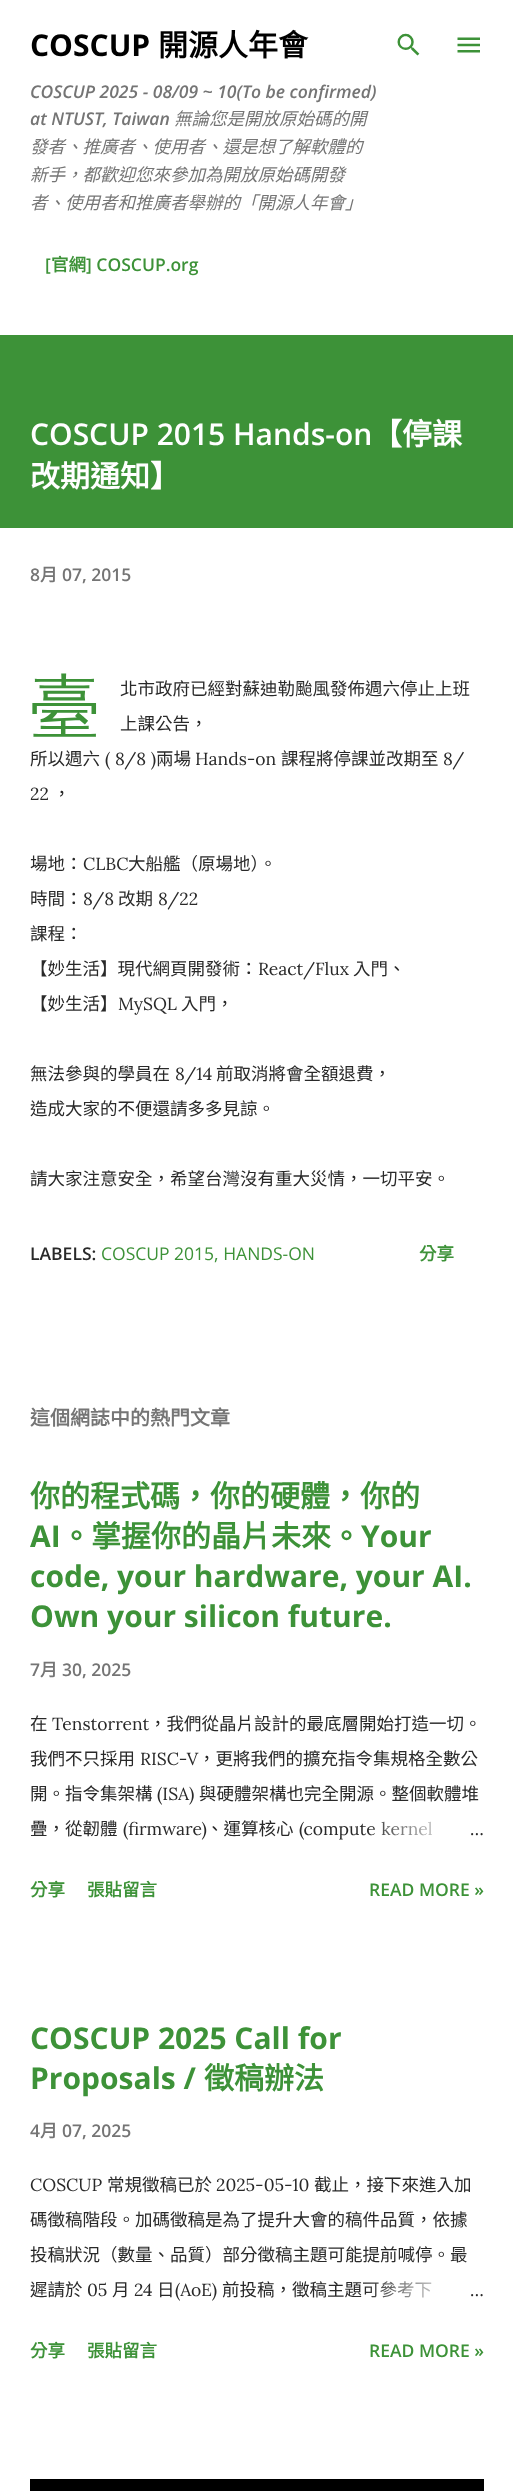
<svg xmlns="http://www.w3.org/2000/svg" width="513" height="2491">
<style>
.a{font:bold 30px Open Sans;fill:#000}
.b{font:bold 30px Noto Sans CJK TC;fill:#000}
.c{font:italic 600 17.5px Open Sans;fill:#757575}
.d{font:italic 17.5px Noto Sans CJK TC;fill:#757575}
.e{font:600 17.5px Open Sans;fill:#3d9238}
.f{font:bold 17.5px Noto Sans CJK TC;fill:#3d9238}
.g{font:600 30px Open Sans;fill:#fff}
.h{font:bold 30px Noto Sans CJK TC;fill:#fff}
.i{font:600 17.5px Open Sans;fill:#757575}
.j{font:bold 17.5px Noto Sans CJK TC;fill:#757575}
.k{font:100 70px Noto Sans;fill:#3d9238}
.l{font:17.5px Noto Sans CJK TC;fill:#292929}
.m{font:17.5px Lora;fill:#292929}
.n{font:600 17.5px Open Sans;fill:#292929}
.o{font:17.5px Open Sans;fill:#3d9238}
.p{font:bold 20px Noto Sans CJK TC;fill:#757575}
.q{font:bold 30px Noto Sans CJK TC;fill:#3d9238}
.r{font:bold 30px Open Sans;fill:#3d9238}
</style>
<defs>
<linearGradient id="g1" gradientUnits="userSpaceOnUse" x1="484" y1="1829" x2="364" y2="1829"><stop offset="0" stop-color="#fff"/><stop offset="0.2" stop-color="#fff"/><stop offset="1" stop-color="#fff" stop-opacity="0"/></linearGradient>
<linearGradient id="g2" gradientUnits="userSpaceOnUse" x1="484" y1="2290" x2="364" y2="2290"><stop offset="0" stop-color="#fff"/><stop offset="0.2" stop-color="#fff"/><stop offset="1" stop-color="#fff" stop-opacity="0"/></linearGradient>
</defs>
<rect width="100%" height="100%" fill="#fff"/>
<image href="1.png" x="397" y="33" width="23" height="23"/>
<image href="2.png" x="457" y="37" width="23" height="16"/>
<path fill="#3d9238" d="M0 335h513v193H0z"/>
<path fill="#000" d="M30 2479h454v12H30z"/>
<text class="a" x="30" y="56">COSCUP</text>
<text class="b" x="158" y="56">開源人年會</text>
<text class="c" x="30" y="98">COSCUP 2025 - 08/09 ~ 10(To be confirmed)</text>
<text class="c" x="30" y="125">at NTUST, Taiwan</text>
<text class="d" x="174" y="125">無論您是開放原始碼的開</text>
<text class="d" x="30" y="153">發者、推廣者、使用者、還是想了解軟體的</text>
<text class="d" x="30" y="181">新手，都歡迎您來參加為開放原始碼開發</text>
<text class="d" x="30" y="209">者、使用者和推廣者舉辦的「開源人年會」</text>
<text class="e" x="45" y="271">[</text>
<text class="f" x="51" y="271">官網</text>
<text class="e" x="86" y="271">] COSCUP.org</text>
<text class="g" x="30" y="445">COSCUP 2015 Hands-on</text>
<text class="h" x="372" y="445">【停課</text>
<text class="h" x="30" y="487">改期通知】</text>
<text class="i" x="30" y="581">8</text>
<text class="j" x="40" y="581">月</text>
<text class="i" x="62" y="581">07, 2015</text>
<text class="k" x="30" y="731">臺</text>
<text class="l" x="120" y="695">北市政府已經對蘇迪勒颱風發佈週六停止上班</text>
<text class="l" x="120" y="730">上課公告，</text>
<text class="l" x="30" y="765">所以週六</text>
<text class="m" x="105" y="765">( 8/8 )</text>
<text class="l" x="156" y="765">兩場</text>
<text class="m" x="195" y="765">Hands-on</text>
<text class="l" x="281" y="765">課程將停課並改期至</text>
<text class="m" x="443" y="765">8/</text>
<text class="m" x="30" y="800">22</text>
<text class="l" x="53" y="800">，</text>
<text class="l" x="30" y="870">場地：</text>
<text class="m" x="83" y="870">CLBC</text>
<text class="l" x="128" y="870">大船艦（原場地）。</text>
<text class="l" x="30" y="905">時間：</text>
<text class="m" x="83" y="905">8/8</text>
<text class="l" x="118" y="905">改期</text>
<text class="m" x="158" y="905">8/22</text>
<text class="l" x="30" y="940">課程：</text>
<text class="l" x="30" y="975">【妙生活】現代網頁開發術：</text>
<text class="m" x="258" y="975">React/Flux</text>
<text class="l" x="353" y="975">入門、</text>
<text class="l" x="30" y="1010">【妙生活】</text>
<text class="m" x="118" y="1010">MySQL</text>
<text class="l" x="181" y="1010">入門，</text>
<text class="l" x="30" y="1080">無法參與的學員在</text>
<text class="m" x="175" y="1080">8/14</text>
<text class="l" x="216" y="1080">前取消將會全額退費，</text>
<text class="l" x="30" y="1115">造成大家的不便還請多多見諒。</text>
<text class="l" x="30" y="1185">請大家注意安全，希望台灣沒有重大災情，一切平安。</text>
<text class="n" x="30" y="1260">LABELS:</text>
<text class="o" x="101" y="1260">COSCUP 2015, HANDS-ON</text>
<text class="f" x="419" y="1260">分享</text>
<text class="p" x="30" y="1425">這個網誌中的熱門文章</text>
<text class="q" x="30" y="1507">你的程式碼，你的硬體，你的</text>
<text class="r" x="30" y="1547">AI</text>
<text class="q" x="61" y="1547">。掌握你的晶片未來。</text>
<text class="r" x="361" y="1547">Your</text>
<text class="r" x="30" y="1587">code, your hardware, your AI.</text>
<text class="r" x="30" y="1627">Own your silicon future.</text>
<text class="i" x="30" y="1676">7</text>
<text class="j" x="40" y="1676">月</text>
<text class="i" x="62" y="1676">30, 2025</text>
<text class="l" x="30" y="1730">在</text>
<text class="m" x="52" y="1730">Tenstorrent</text>
<text class="l" x="149" y="1730">，我們從晶片設計的最底層開始打造一切。</text>
<text class="l" x="30" y="1765">我們不只採用</text>
<text class="m" x="140" y="1765">RISC-V</text>
<text class="l" x="198" y="1765">，更將我們的擴充指令集規格全數公</text>
<text class="l" x="30" y="1800">開。指令集架構</text>
<text class="m" x="157" y="1800">(ISA)</text>
<text class="l" x="199" y="1800">與硬體架構也完全開源。整個軟體堆</text>
<text class="l" x="30" y="1835">疊，從韌體</text>
<text class="m" x="123" y="1835">(firmware)</text>
<text class="l" x="206" y="1835">、運算核心</text>
<text class="m" x="299" y="1835" word-spacing="1">(compute kernel</text>
<path fill="url(#g1)" d="M367 1821h65v15H367z"/>
<text class="m" x="470" y="1835">…</text>
<text class="f" x="30" y="1896">分享</text>
<text class="f" x="87" y="1896">張貼留言</text>
<text class="e" x="369" y="1896">READ MORE »</text>
<text class="r" x="30" y="2049">COSCUP 2025 Call for</text>
<text class="r" x="30" y="2089">Proposals /</text>
<text class="q" x="204" y="2089">徵稿辦法</text>
<text class="i" x="30" y="2137">4</text>
<text class="j" x="40" y="2137">月</text>
<text class="i" x="62" y="2137">07, 2025</text>
<text class="m" x="30" y="2191">COSCUP</text>
<text class="l" x="107" y="2191">常規徵稿已於</text>
<text class="m" x="216" y="2191">2025-05-10</text>
<text class="l" x="314" y="2191">截止，接下來進入加</text>
<text class="l" x="30" y="2226">碼徵稿階段。加碼徵稿是為了提升大會的稿件品質，依據</text>
<text class="l" x="30" y="2261">投稿狀況（數量、品質）部分徵稿主題可能提前喊停。最</text>
<text class="l" x="30" y="2296">遲請於</text>
<text class="m" x="87" y="2296">05</text>
<text class="l" x="112" y="2296">月</text>
<text class="m" x="134" y="2296">24</text>
<text class="l" x="157" y="2296">日</text>
<text class="m" x="175" y="2296">(AoE)</text>
<text class="l" x="222" y="2296">前投稿，徵稿主題可參考下</text>
<path fill="url(#g2)" d="M366 2281h65v17H366z"/>
<text class="m" x="470" y="2296">…</text>
<text class="f" x="30" y="2357">分享</text>
<text class="f" x="87" y="2357">張貼留言</text>
<text class="e" x="369" y="2357">READ MORE »</text>
</svg>
